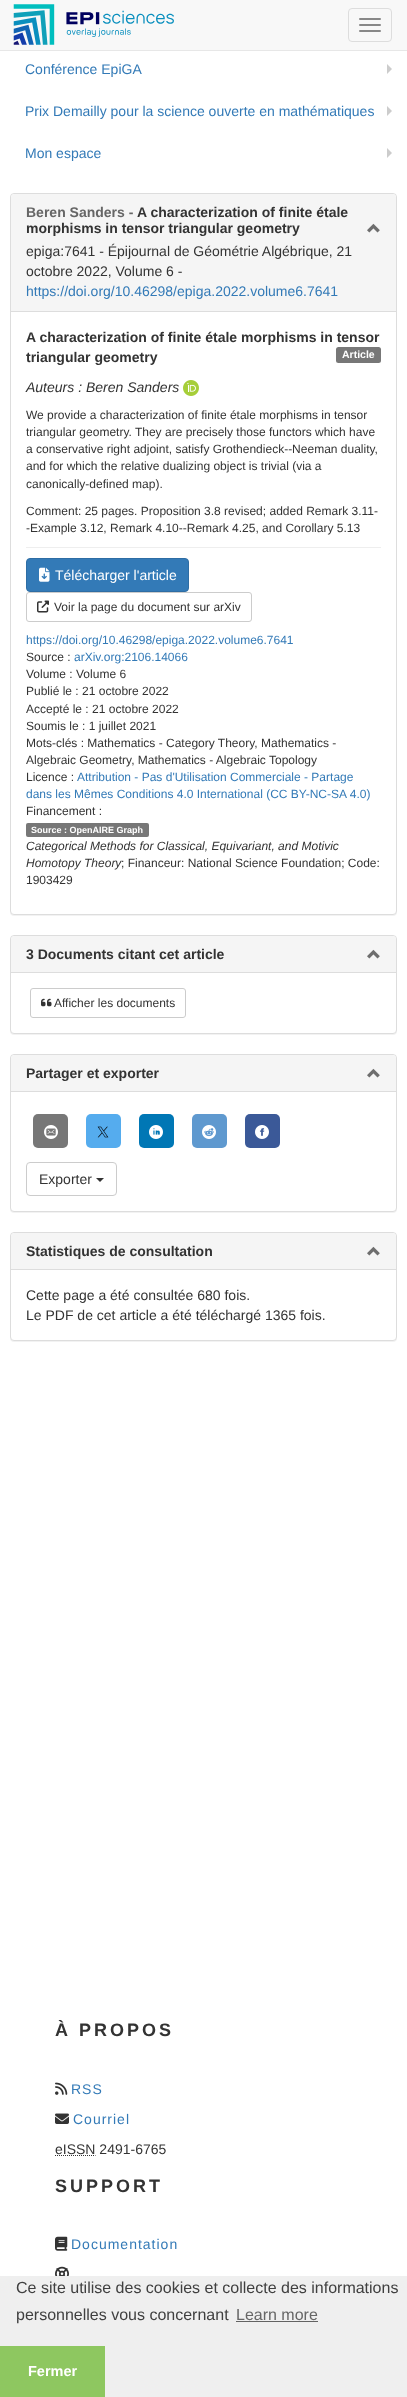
<svg xmlns="http://www.w3.org/2000/svg" width="407" height="2397">
<style>
.a{font:14px Liberation Sans;fill:#337ab7}
.b{font:bold 14px Liberation Sans;fill:#666}
.c{font:bold 14px Liberation Sans;fill:#333}
.d{font:14px Liberation Sans;fill:#333}
.e{font:bold 10.5px Liberation Sans;fill:#fff}
.f{font:italic 14px Liberation Sans;fill:#333}
.g{font:12px Liberation Sans;fill:#333}
.h{font:14px Liberation Sans;fill:#fff}
.i{font:12px Liberation Sans;fill:#337ab7}
.j{font:bold 9px Liberation Sans;fill:#fff}
.k{font:italic 12px Liberation Sans;fill:#333}
.l{font:bold 18px Liberation Sans;letter-spacing:3px;fill:#333}
.m{font:14px Liberation Sans;letter-spacing:1px;fill:#337ab7}
.n{font:16px Liberation Sans;fill:#404040}
.o{font:16px Liberation Sans;fill:#666}
.p{font:bold 14.5px Liberation Sans;fill:#fff}
</style>
<rect width="100%" height="100%" fill="#fff"/>
<path fill="#f8f8f8" d="M0 0h407v50H0z"/>
<path fill="#e7e7e7" d="M0 50h407v1H0z"/>
<image href="1.png" x="13" y="4" width="161" height="41"/>
<rect fill="none" stroke="#ddd" x="348.5" y="8.5" width="43" height="33" rx="3.5"/>
<rect fill="#888" x="359" y="18" width="22" height="2" rx="1"/>
<rect fill="#888" x="359" y="24" width="22" height="2" rx="1"/>
<rect fill="#888" x="359" y="30" width="22" height="2" rx="1"/>
<path fill="#ccc" d="M387 74v-10l5 5z"/>
<path fill="#ccc" d="M387 116v-10l5 5z"/>
<path fill="#ccc" d="M387 158v-10l5 5z"/>
<rect fill="#0000000d" filter="blur(0.5px)" x="10" y="194" width="387" height="722" rx="4"/>
<rect fill="#fff" stroke="#ddd" x="10.5" y="193.5" width="386" height="721" rx="3.5"/>
<path fill="#f5f5f5" d="M14 194h379c1.5 0 3 1.5 3 3v115h-385v-115c0-1.5 1.5-3 3-3z"/>
<path fill="#ddd" d="M11 311h385v1H11z"/>
<image href="2.png" x="367" y="223" width="13" height="10"/>
<rect fill="#777" x="336" y="347" width="45" height="16" rx="2.5"/>
<image href="3.png" x="183" y="380" width="16" height="16"/>
<path fill="#eee" d="M26 547h355v1H26z"/>
<rect fill="#337ab7" stroke="#2e6da4" x="26.5" y="558.5" width="162" height="33" rx="3.5"/>
<image href="4.png" x="39" y="567" width="11" height="15"/>
<rect fill="none" stroke="#ccc" x="26.5" y="592.5" width="225" height="29" rx="2.5"/>
<image href="5.png" x="37" y="600" width="12" height="13"/>
<rect fill="#777" x="26" y="823" width="123" height="14" rx="2"/>
<rect fill="#0000000d" filter="blur(0.5px)" x="10" y="936" width="387" height="99" rx="4"/>
<rect fill="#fff" stroke="#ddd" x="10.5" y="935.5" width="386" height="98" rx="3.5"/>
<path fill="#f5f5f5" d="M14 936h379c1.5 0 3 1.5 3 3v34h-385v-34c0-1.5 1.5-3 3-3z"/>
<path fill="#ddd" d="M11 972h385v1H11z"/>
<image href="2.png" x="367" y="949" width="13" height="10"/>
<rect fill="none" stroke="#ccc" x="30.5" y="988.5" width="155" height="29" rx="2.5"/>
<image href="6.png" x="41" y="998" width="11" height="9"/>
<rect fill="#0000000d" filter="blur(0.5px)" x="10" y="1055" width="387" height="158" rx="4"/>
<rect fill="#fff" stroke="#ddd" x="10.5" y="1054.5" width="386" height="157" rx="3.5"/>
<path fill="#f5f5f5" d="M14 1055h379c1.5 0 3 1.5 3 3v34h-385v-34c0-1.5 1.5-3 3-3z"/>
<path fill="#ddd" d="M11 1091h385v1H11z"/>
<image href="2.png" x="367" y="1068" width="13" height="10"/>
<rect fill="#777" x="33" y="1114" width="35" height="34" rx="5"/>
<image href="7.png" x="44" y="1125" width="14" height="14"/>
<rect fill="#55acee" x="86" y="1114" width="35" height="34" rx="5"/>
<image href="8.png" x="97" y="1126" width="12" height="12"/>
<rect fill="#0077b5" x="139" y="1114" width="35" height="34" rx="5"/>
<image href="9.png" x="149" y="1125" width="14" height="14"/>
<rect fill="#5f99cf" x="192" y="1114" width="35" height="34" rx="5"/>
<image href="10.png" x="202" y="1125" width="14" height="14"/>
<rect fill="#3b5998" x="245" y="1114" width="35" height="34" rx="5"/>
<image href="11.png" x="255" y="1125" width="14" height="14"/>
<rect fill="none" stroke="#ccc" x="26.5" y="1162.5" width="90" height="33" rx="3.5"/>
<path fill="#333" d="M96 1178h8l-4 4z"/>
<rect fill="#0000000d" filter="blur(0.5px)" x="10" y="1233" width="387" height="109" rx="4"/>
<rect fill="#fff" stroke="#ddd" x="10.5" y="1232.5" width="386" height="108" rx="3.5"/>
<path fill="#f5f5f5" d="M14 1233h379c1.5 0 3 1.5 3 3v34h-385v-34c0-1.5 1.5-3 3-3z"/>
<path fill="#ddd" d="M11 1269h385v1H11z"/>
<image href="2.png" x="367" y="1246" width="13" height="10"/>
<image href="12.png" x="55" y="2082" width="13" height="13"/>
<image href="13.png" x="55" y="2113" width="14" height="11"/>
<path fill="none" stroke="#333" stroke-dasharray="1 1" d="M55 2155.5h40.5"/>
<image href="14.png" x="55" y="2236" width="13" height="15"/>
<image href="15.png" x="55" y="2266" width="14" height="10"/>
<path fill="#efefef" d="M0 2276h407v121H0z"/>
<path fill="#636363" d="M236 2321h82v1H236z"/>
<path fill="#8ec760" d="M0 2346h105v51H0z"/>
<text class="a" x="25" y="74">Conférence EpiGA</text>
<text class="a" x="25" y="116">Prix Demailly pour la science ouverte en mathématiques</text>
<text class="a" x="25" y="158">Mon espace</text>
<text class="b" x="26" y="217">Beren Sanders -</text>
<text class="c" x="137" y="217">A characterization of finite étale</text>
<text class="c" x="26" y="233">morphisms in tensor triangular geometry</text>
<text class="d" x="26" y="256">epiga:7641 - Épijournal de Géométrie Algébrique, 21</text>
<text class="d" x="26" y="276">octobre 2022, Volume 6 -</text>
<text class="a" x="26" y="296">https://doi.org/10.46298/epiga.2022.volume6.7641</text>
<text class="c" x="26" y="342">A characterization of finite étale morphisms in tensor</text>
<text class="c" x="26" y="362">triangular geometry</text>
<text class="e" x="342" y="358">Article</text>
<text class="f" x="26" y="392">Auteurs : Beren Sanders</text>
<text class="g" x="26" y="419">We provide a characterization of finite étale morphisms in tensor</text>
<text class="g" x="26" y="436">triangular geometry. They are precisely those functors which have</text>
<text class="g" x="26" y="453">a conservative right adjoint, satisfy Grothendieck--Neeman duality,</text>
<text class="g" x="26" y="470">and for which the relative dualizing object is trivial (via a</text>
<text class="g" x="26" y="488">canonically-defined map).</text>
<text class="g" x="26" y="515">Comment: 25 pages. Proposition 3.8 revised; added Remark 3.11-</text>
<text class="g" x="26" y="532">-Example 3.12, Remark 4.10--Remark 4.25, and Corollary 5.13</text>
<text class="h" x="55" y="580">Télécharger l'article</text>
<text class="g" x="54" y="611">Voir la page du document sur arXiv</text>
<text class="i" x="26" y="644">https://doi.org/10.46298/epiga.2022.volume6.7641</text>
<text class="g" x="26" y="661">Source :</text>
<text class="i" x="74" y="661">arXiv.org:2106.14066</text>
<text class="g" x="26" y="678">Volume : Volume 6</text>
<text class="g" x="26" y="695">Publié le : 21 octobre 2022</text>
<text class="g" x="26" y="713">Accepté le : 21 octobre 2022</text>
<text class="g" x="26" y="730">Soumis le : 1 juillet 2021</text>
<text class="g" x="26" y="747">Mots-clés : Mathematics - Category Theory, Mathematics -</text>
<text class="g" x="26" y="764">Algebraic Geometry, Mathematics - Algebraic Topology</text>
<text class="g" x="26" y="781">Licence :</text>
<text class="i" x="77" y="781">Attribution - Pas d'Utilisation Commerciale - Partage</text>
<text class="i" x="26" y="798">dans les Mêmes Conditions 4.0 International (CC BY-NC-SA 4.0)</text>
<text class="g" x="26" y="815">Financement :</text>
<text class="j" x="31" y="833">Source : OpenAIRE Graph</text>
<text class="k" x="26" y="850">Categorical Methods for Classical, Equivariant, and Motivic</text>
<text class="k" x="26" y="867">Homotopy Theory</text>
<text class="g" x="121" y="867">; Financeur: National Science Foundation; Code:</text>
<text class="g" x="26" y="884">1903429</text>
<text class="c" x="26" y="959">3 Documents citant cet article</text>
<text class="g" x="54" y="1007">Afficher les documents</text>
<text class="c" x="26" y="1078">Partager et exporter</text>
<text class="d" x="39" y="1184">Exporter</text>
<text class="c" x="26" y="1256">Statistiques de consultation</text>
<text class="d" x="26" y="1300">Cette page a été consultée 680 fois.</text>
<text class="d" x="26" y="1320">Le PDF de cet article a été téléchargé 1365 fois.</text>
<text class="l" x="55" y="2036">À PROPOS</text>
<text class="m" x="71" y="2094">RSS</text>
<text class="m" x="73" y="2124">Courriel</text>
<text class="d" x="55" y="2154">eISSN 2491-6765</text>
<text class="l" x="55" y="2192">SUPPORT</text>
<text class="m" x="71" y="2249">Documentation</text>
<text class="n" x="16" y="2293">Ce site utilise des cookies et collecte des informations</text>
<text class="n" x="16" y="2320">personnelles vous concernant</text>
<text class="o" x="236" y="2320">Learn more</text>
<text class="p" x="28" y="2376">Fermer</text>
</svg>
